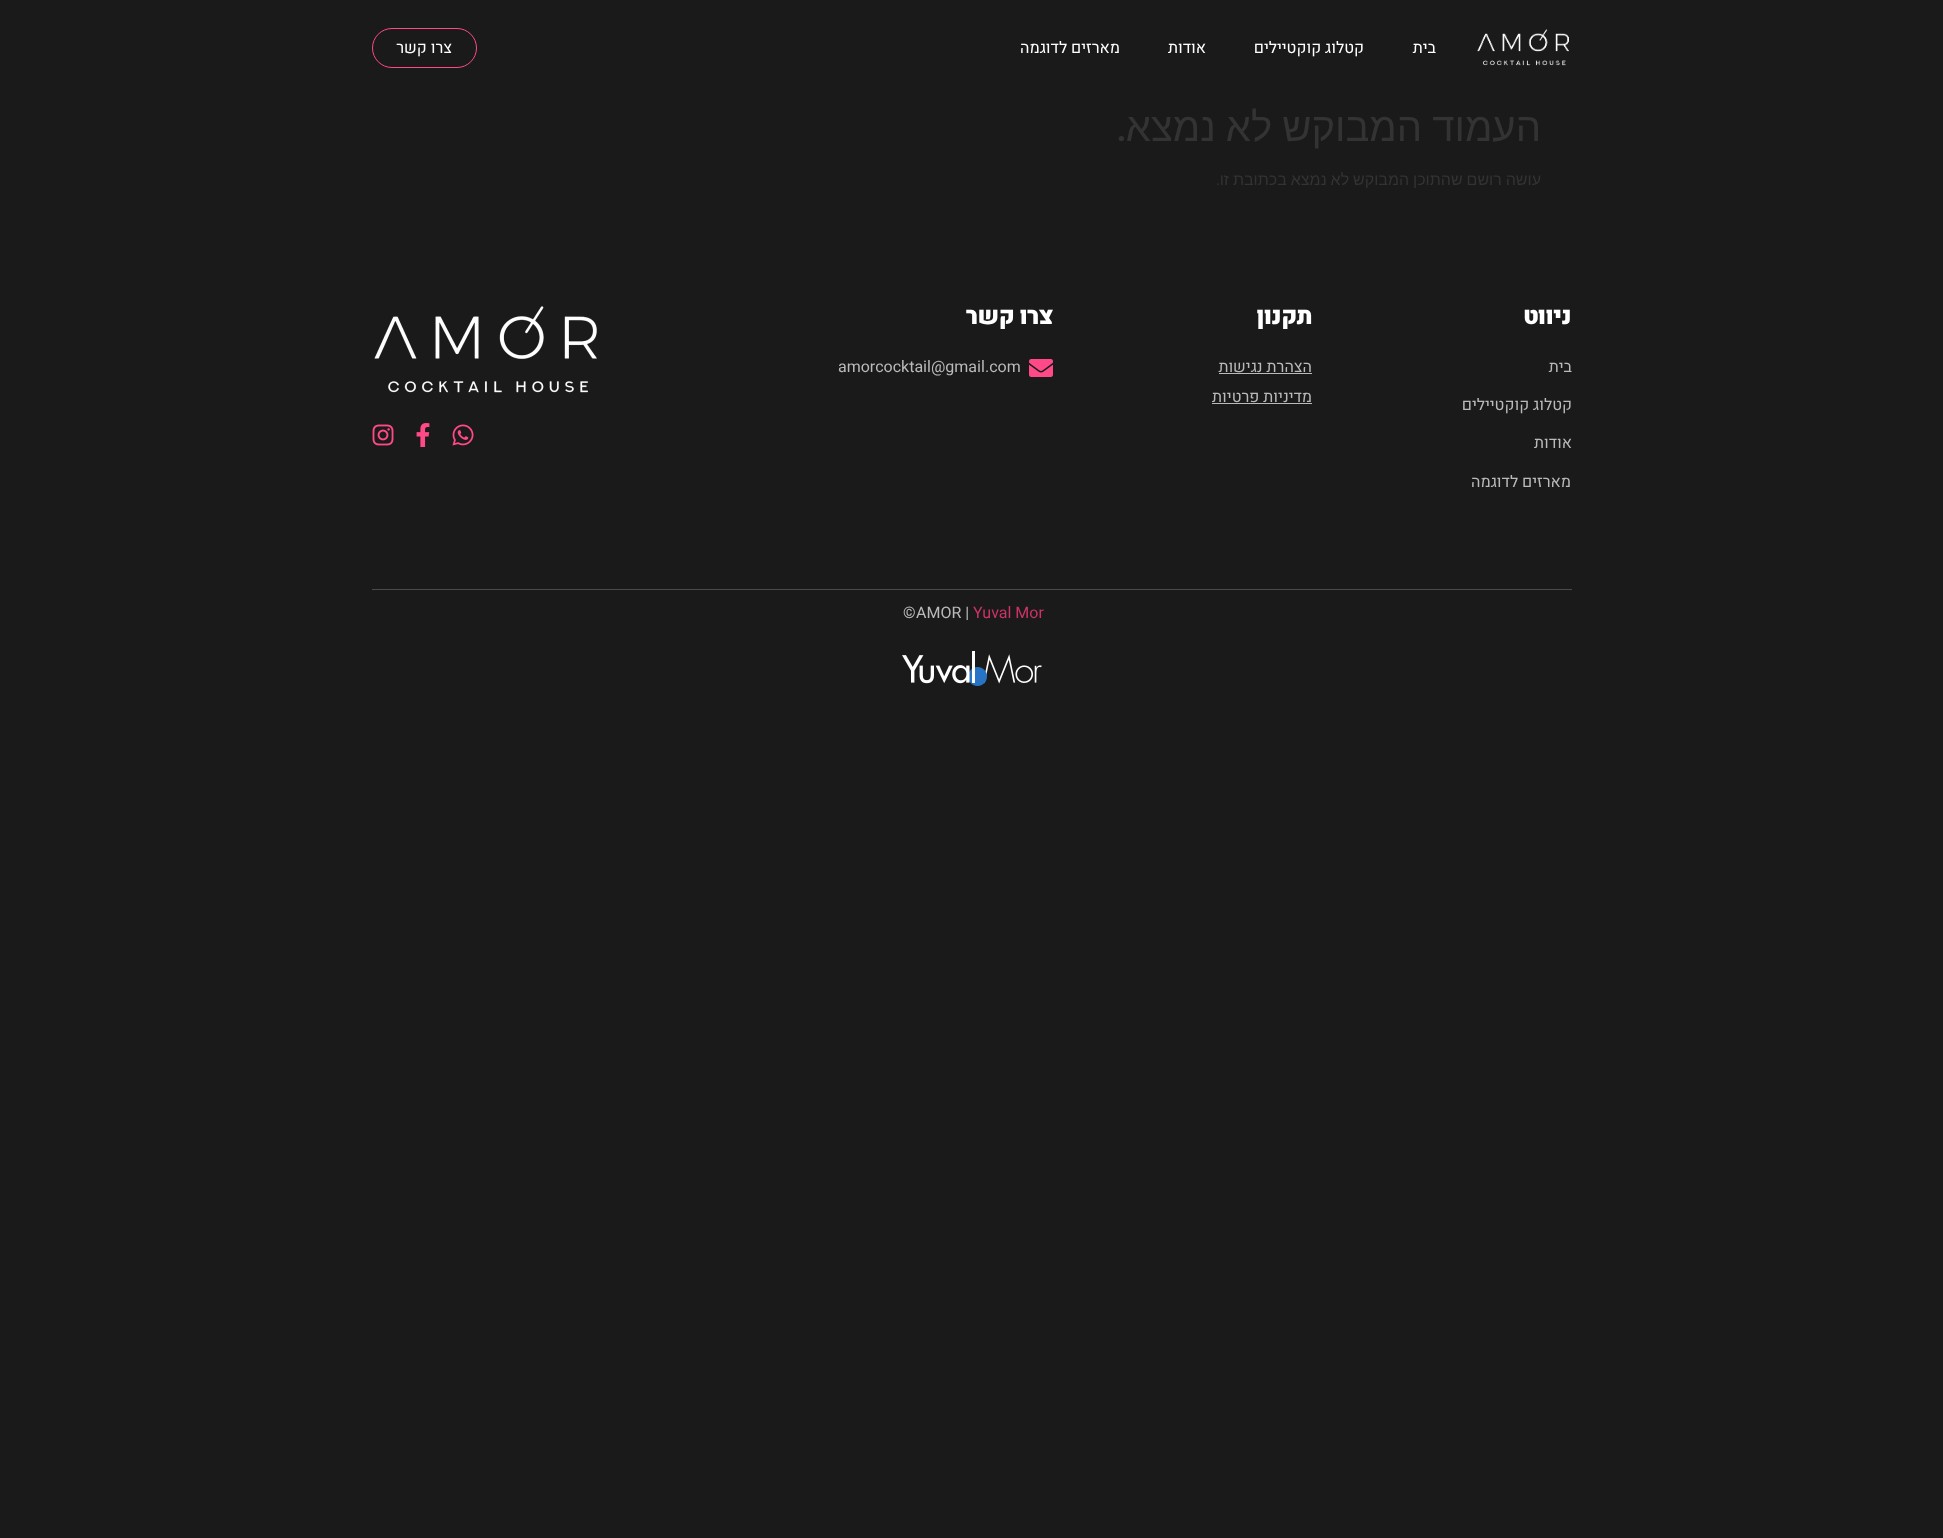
<svg xmlns="http://www.w3.org/2000/svg" width="1943" height="1538">
<style>
.a{font:16px Heebo;direction:rtl;fill:#fff}
.b{font:40px Liberation Sans;direction:rtl;fill:#333}
.c{font:500 40px Roboto;direction:rtl;fill:#333}
.d{font:16px Liberation Sans;direction:rtl;fill:#333}
.e{font:16px Roboto;direction:rtl;fill:#333}
.f{font:900 24px Heebo;letter-spacing:-0.5px;direction:rtl;fill:#fff}
.g{font:16px Heebo;direction:rtl;fill:#bababa}
.h{font:16px Heebo;fill:#bababa}
.i{font:16px Heebo;fill:#c36}
</style>
<rect width="100%" height="100%" fill="#1a1a1a"/>
<image href="1.png" x="1477" y="29" width="92" height="37"/>
<rect fill="none" stroke="#ff4988" x="372.5" y="28.5" width="104" height="39" rx="19.5"/>
<path fill="#bababa" d="M1219 373h93v1H1219z"/>
<path fill="#bababa" d="M1212 403h100v1H1212z"/>
<image href="2.png" x="1029" y="359" width="24" height="18"/>
<image href="3.png" x="374" y="306" width="223" height="87"/>
<image href="4.png" x="452" y="424" width="22" height="22"/>
<image href="5.png" x="416" y="423" width="14" height="24"/>
<image href="6.png" x="372" y="424" width="22" height="22"/>
<path fill="#4b4b4b" d="M372 589h1200v1H372z"/>
<image href="7.png" x="902" y="651" width="140" height="35"/>
<text class="a" x="1436" y="53">בית</text>
<text class="a" x="1364" y="53">קטלוג קוקטיילים</text>
<text class="a" x="1206" y="53">אודות</text>
<text class="a" x="1120" y="53">מארזים לדוגמה</text>
<text class="a" x="452" y="53">צרו קשר</text>
<text class="b" x="1541" y="141" word-spacing="-1">העמוד המבוקש לא נמצא</text>
<text class="c" x="1127" y="141">.</text>
<text class="d" x="1541" y="185" word-spacing="-0.5">עושה רושם שהתוכן המבוקש לא נמצא בכתובת זו</text>
<text class="e" x="1220" y="185">.</text>
<text class="f" x="1571" y="324">ניווט</text>
<text class="g" x="1572" y="372">בית</text>
<text class="g" x="1572" y="410">קטלוג קוקטיילים</text>
<text class="g" x="1572" y="448">אודות</text>
<text class="g" x="1571" y="487">מארזים לדוגמה</text>
<text class="f" x="1312" y="324">תקנון</text>
<text class="g" x="1312" y="372">הצהרת נגישות</text>
<text class="g" x="1312" y="402">מדיניות פרטיות</text>
<text class="f" x="1053" y="324">צרו קשר</text>
<text class="h" x="838" y="372">amorcocktail@gmail.com</text>
<text class="i" x="973" y="618">Yuval Mor</text>
<text class="h" x="916" y="618">AMOR |</text>
<text class="h" x="903" y="618">©</text>
</svg>
